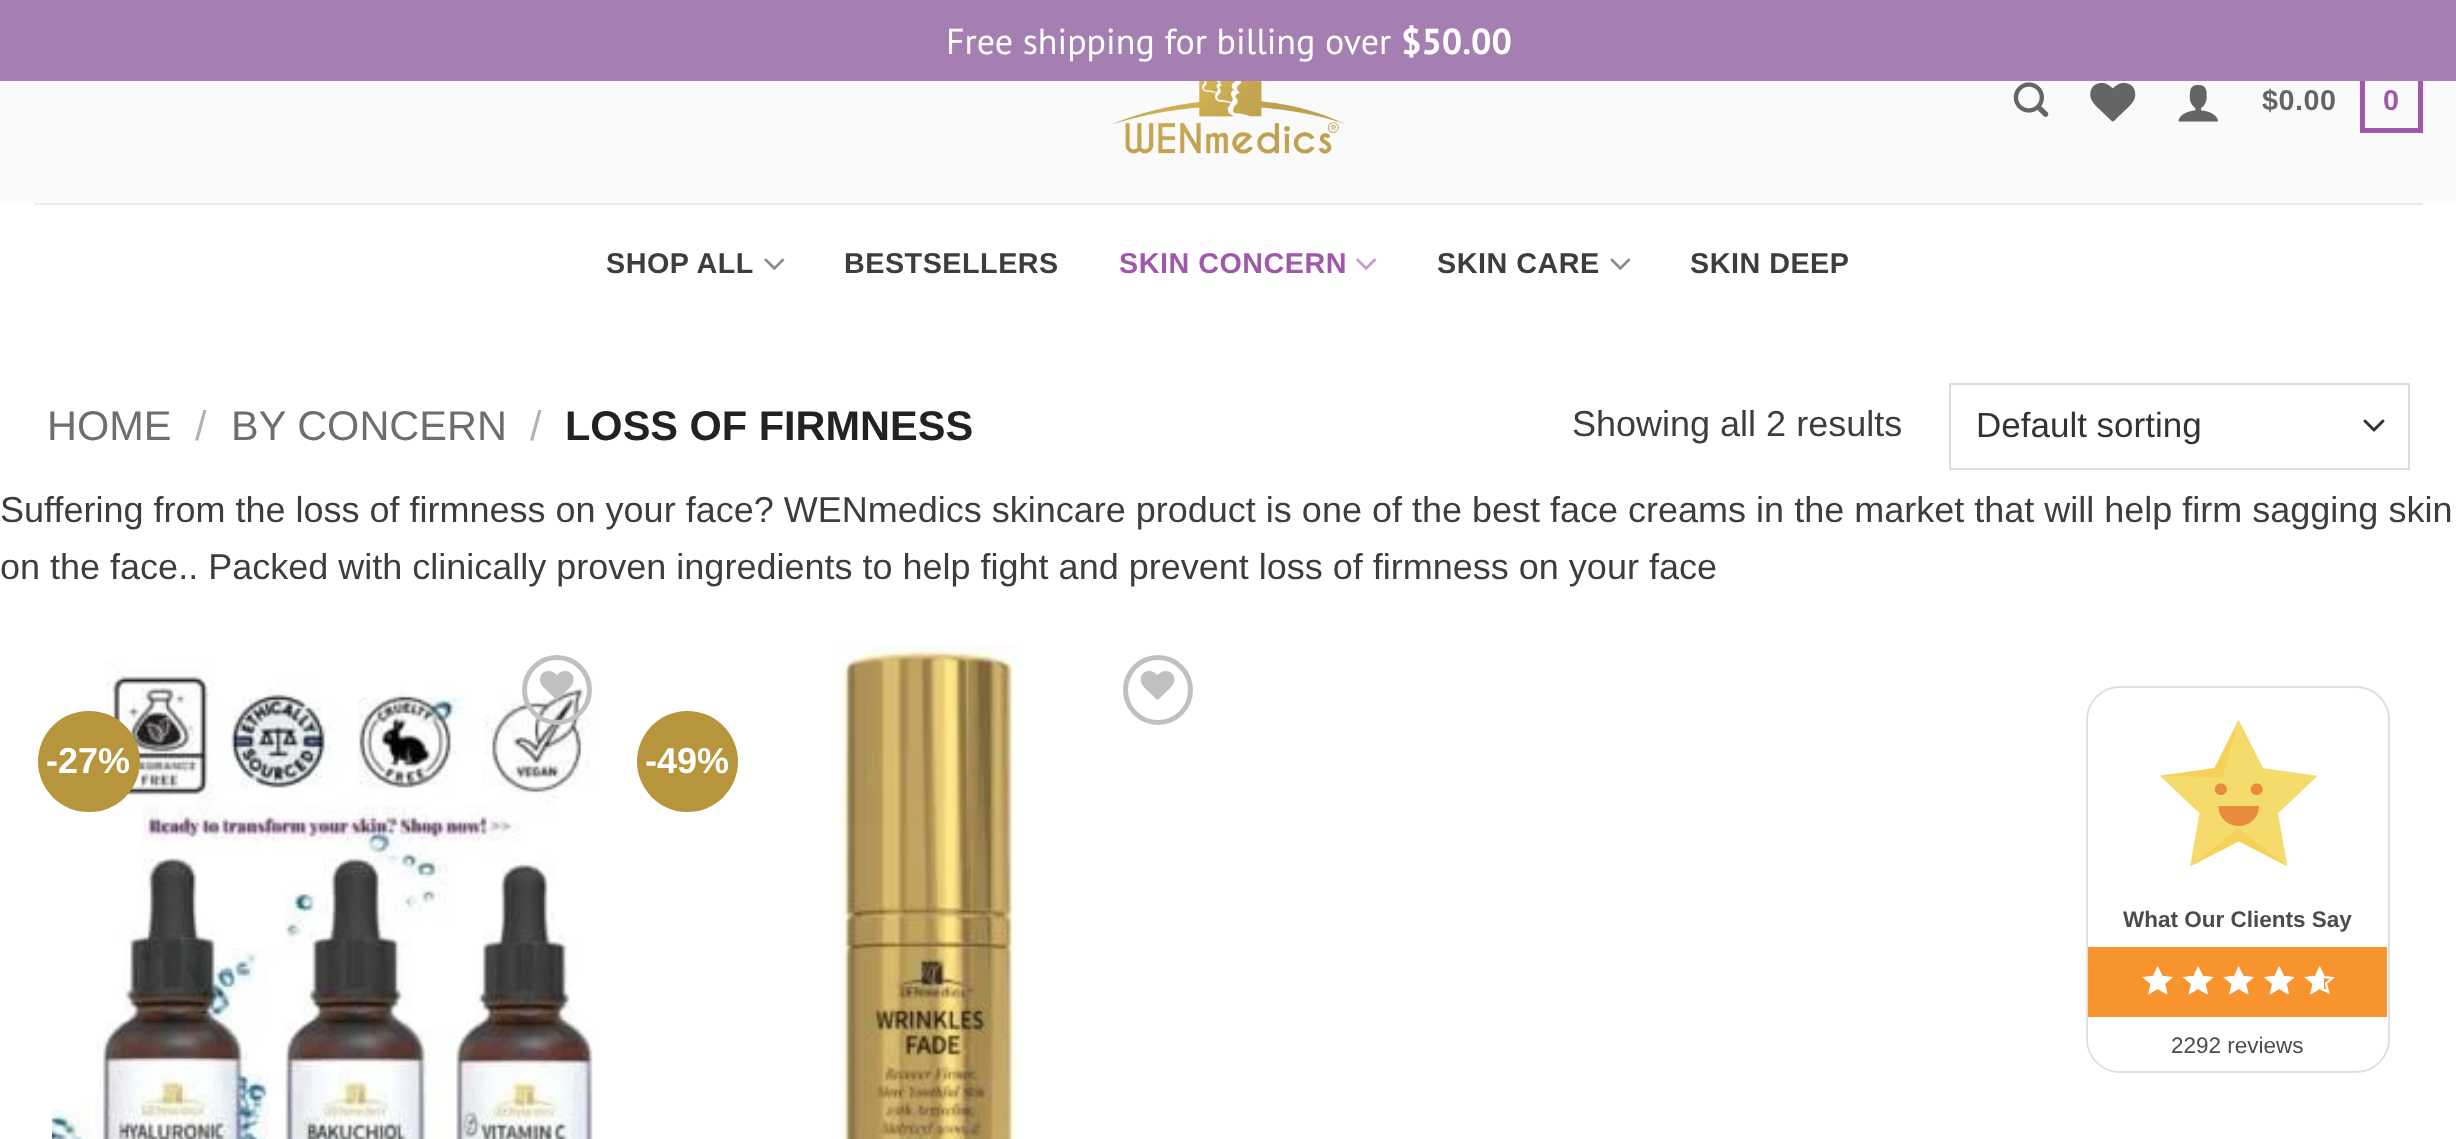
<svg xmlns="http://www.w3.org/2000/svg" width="2456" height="1139">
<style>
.a{font:36px PT Sans;fill:#fff}
.b{font:bold 36px PT Sans;fill:#fff}
.c{font:bold 28.75px Liberation Sans;letter-spacing:0.5px;fill:#646464}
.d{font:bold 28.75px Liberation Sans;letter-spacing:0.5px;fill:#a057ac}
.e{font:bold 28.75px Liberation Sans;letter-spacing:0.5px;fill:#3d3d3d}
.f{font:41.5px Liberation Sans;fill:#6e6e6e}
.g{font:41.5px Liberation Sans;fill:#b2b2b2}
.h{font:bold 41.5px Liberation Sans;fill:#222}
.i{font:36px Liberation Sans;fill:#3d3d3d}
.j{font:35px Liberation Sans;fill:#333}
.k{font:bold 36px Liberation Sans;fill:#fff}
.l{font:bold 22.5px Liberation Sans;fill:#4c4c4c}
.m{font:22.5px Liberation Sans;fill:#4c4c4c}
</style>
<defs>
<clipPath id="clip1"><path d="M2304 965h20v30H2304z"/></clipPath>
</defs>
<rect width="100%" height="100%" fill="#fff"/>
<path fill="#fafafa" d="M0 81h2456v122H0z"/>
<path fill="none" stroke="#a057ac" stroke-width="5" d="M2362.5 72.5h58v58H2362.5z"/>
<path fill="#a57fb2" d="M0 0h2456v81H0z"/>
<image href="1.png" x="1112" y="81" width="233" height="73"/>
<image href="2.png" x="2013" y="82" width="36" height="35"/>
<image href="3.png" x="2090" y="82" width="46" height="40"/>
<image href="4.png" x="2178" y="84" width="40" height="38"/>
<path fill="#ececec" d="M34 203h2389v2H34z"/>
<image href="5.png" x="764" y="258" width="21" height="12"/>
<image href="6.png" x="1356" y="258" width="20" height="12"/>
<image href="5.png" x="1610" y="258" width="21" height="12"/>
<path fill="none" stroke="#333" stroke-width="3" stroke-linecap="round" stroke-linejoin="round" d="M2365 421l9 9l9-9"/>
<path fill="none" stroke="#ddd" stroke-width="2" d="M1950 384h459v85H1950z"/>
<image href="8.png" x="51" y="662" width="542" height="477"/>
<circle fill="none" stroke="#c0c0c0" stroke-width="5" cx="557" cy="690" r="32.5"/>
<image href="7.png" x="540" y="671" width="34" height="29"/>
<rect fill="#b7953d" x="38" y="711" width="102" height="101" rx="50.5"/>
<circle fill="#b7953d" cx="687.5" cy="761.5" r="50.5"/>
<image href="9.png" x="833" y="644" width="188" height="495"/>
<circle fill="none" stroke="#c0c0c0" stroke-width="5" cx="1158" cy="690" r="32.5"/>
<image href="10.png" x="1140" y="671" width="35" height="29"/>
<rect fill="none" stroke="#dfdfdf" stroke-width="2" x="2087" y="687" width="302" height="385" rx="33"/>
<path fill="#fff" d="M2120 689h235c17.5 0 32 14.5 32 32v226h-299v-226c0-17.5 14.5-32 32-32z"/>
<path fill="#f8942d" d="M2088 947h299v70H2088z"/>
<path fill="#fff" d="M2088 1017h299v22c0 17.5-14.5 32-32 32h-235c-17.5 0-32-14.5-32-32z"/>
<image href="11.png" x="2160" y="720" width="158" height="146"/>
<path fill="none" stroke="#fff" stroke-width="2.2" d="M2159 988l-1-.5l-7.5 4.5l2-8.5l-6.5-5.5l8.5-1l3.5-8l4 8l8.5 1l-6.5 5.5l2 8.5z"/>
<path fill="#fff" d="M2157.5 989l9 5.5l-2.5-10.5l8.5-7l-11-1l-4-10l-4.5 10l-11 1l8.5 7l-2.5 10.5z"/>
<path fill="none" stroke="#fff" stroke-width="2.2" d="M2199.5 988l-1-.5l-7.5 4.5l2-8.5l-6.5-5.5l8.5-1l3.5-8l4 8l8.5 1l-6.5 5.5l2 8.5z"/>
<path fill="#fff" d="M2198 989l9 5.5l-2.5-10.5l8.5-7l-11-1l-4-10l-4.5 10l-11 1l8.5 7l-2.5 10.5z"/>
<path fill="none" stroke="#fff" stroke-width="2.2" d="M2240 988l-1-.5l-7.5 4.5l2-8.5l-6.5-5.5l8.5-1l3.5-8l4 8l8.5 1l-6.5 5.5l2 8.5z"/>
<path fill="#fff" d="M2238.5 989l9 5.5l-2.5-10.5l8.5-7l-11-1l-4-10l-4.5 10l-11 1l8.5 7l-2.5 10.5z"/>
<path fill="none" stroke="#fff" stroke-width="2.2" d="M2280.5 988l-1-.5l-7.5 4.5l2-8.5l-6.5-5.5l8.5-1l3.5-8l4 8l8.5 1l-6.5 5.5l2 8.5z"/>
<path fill="#fff" d="M2279 989l9 5.5l-2.5-10.5l8.5-7l-11-1l-4-10l-4.5 10l-11 1l8.5 7l-2.5 10.5z"/>
<path fill="none" stroke="#fff" stroke-width="2.2" d="M2321 988l-1-.5l-7.5 4.5l2-8.5l-6.5-5.5l8.5-1l3.5-8l4 8l8.5 1l-6.5 5.5l2 8.5z"/>
<g clip-path="url(#clip1)">
<path fill="#fff" d="M2319.5 989l9 5.5l-2.5-10.5l8.5-7l-11-1l-4-10l-4.5 10l-11 1l8.5 7l-2.5 10.5z"/>
</g>
<text class="a" x="946" y="54">Free shipping for billing over</text>
<text class="b" x="1401" y="54">$50.00</text>
<text class="c" x="2262" y="110">$0.00</text>
<text class="d" x="2383" y="110">0</text>
<text class="e" x="606" y="273">SHOP ALL</text>
<text class="e" x="844" y="273">BESTSELLERS</text>
<text class="d" x="1119" y="273">SKIN CONCERN</text>
<text class="e" x="1437" y="273">SKIN CARE</text>
<text class="e" x="1690" y="273">SKIN DEEP</text>
<text class="f" x="47" y="440">HOME</text>
<text class="g" x="195" y="440">/</text>
<text class="f" x="231" y="440">BY CONCERN</text>
<text class="g" x="530" y="440">/</text>
<text class="h" x="565" y="440">LOSS OF FIRMNESS</text>
<text class="i" x="1572" y="436">Showing all 2 results</text>
<text class="j" x="1976" y="437">Default sorting</text>
<text class="i" x="0" y="522">Suffering from the loss of firmness on your face? WENmedics skincare product is one of the best face creams in the market that will help firm sagging skin</text>
<text class="i" x="0" y="579">on the face.. Packed with clinically proven ingredients to help fight and prevent loss of firmness on your face</text>
<text class="k" x="46" y="773">-27%</text>
<text class="k" x="645" y="773">-49%</text>
<text class="l" x="2123" y="927">What Our Clients Say</text>
<text class="m" x="2171" y="1053">2292 reviews</text>
</svg>
